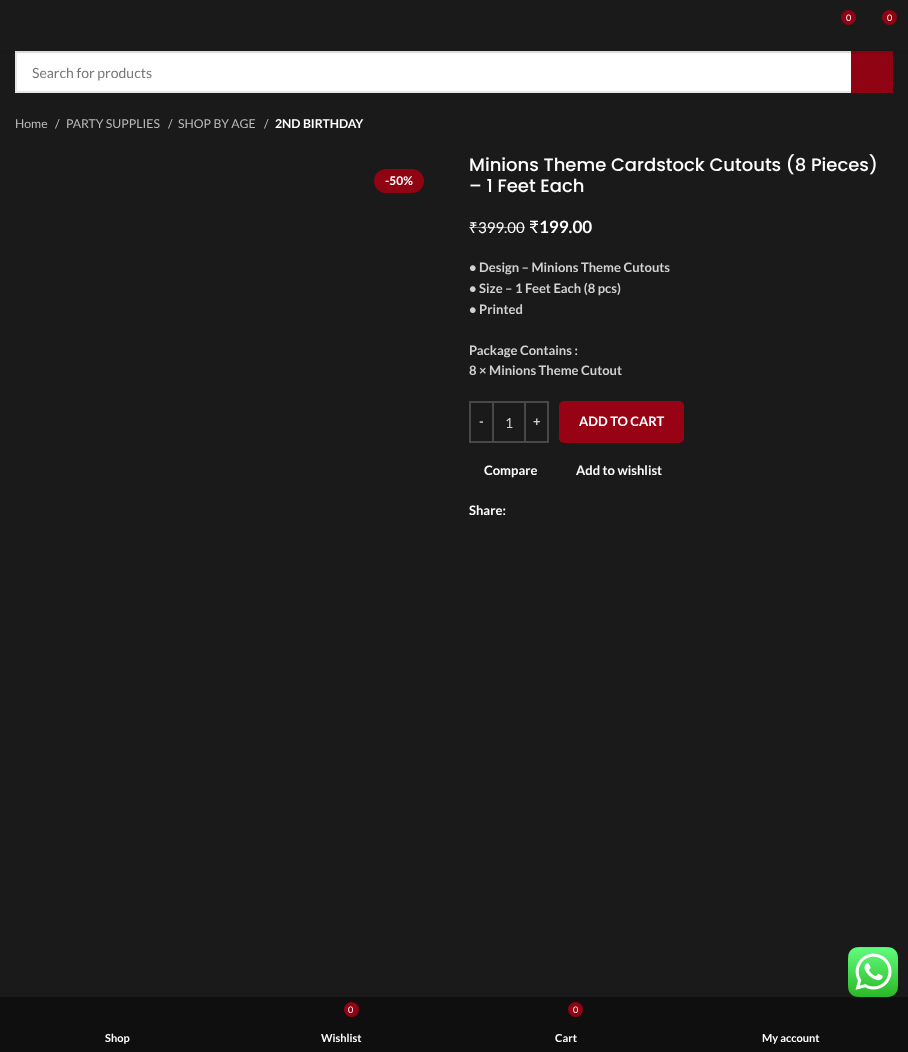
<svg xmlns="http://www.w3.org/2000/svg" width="908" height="1052">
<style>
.a{font:9px Lato;fill:#fff}
.b{font:14px Lato;fill:#777}
.c{font:12.25px Lato;fill:#bababa}
.d{font:bold 12.25px Lato;fill:#fff}
.e{font:bold 12px Lato;fill:#fff}
.f{font:500 18px Poppins;fill:#fff}
.g{font:15px Noto Sans;fill:#fff}
.h{font:15px Lato;fill:#fff}
.i{font:17px 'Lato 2';fill:#fff}
.j{font:bold 17px Lato;fill:#fff}
.k{font:bold 13px Lato;fill:#d1d1d1}
.l{font:14px Lato;fill:#d1d1d1}
.m{font:bold 13px Lato;fill:#fff}
.n{font:bold 11px Lato;fill:#fff}
</style>
<defs>
<clipPath id="clip1"><path d="M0 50h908v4H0z"/></clipPath>
</defs>
<rect width="100%" height="100%" fill="#1a1a1a"/>
<path fill="#fff" d="M17 53h834v38H17z"/>
<path fill="none" stroke="#e6e6e6" stroke-width="2" d="M16 52h876v40H16z"/>
<path fill="#900312" d="M851 51h42v42H851z"/>
<g clip-path="url(#clip1)">
<path fill="#0000001a" filter="blur(4px)" d="M0 1h908v50H0z"/>
</g>
<circle fill="#900312" cx="848.5" cy="17.5" r="7.5"/>
<circle fill="#900312" cx="889.5" cy="17.5" r="7.5"/>
<rect fill="#900312" x="374" y="169" width="50" height="24" rx="12"/>
<path fill="none" stroke="#484848" stroke-width="2" d="M470 402h23v40H470z"/>
<path fill="#484848" d="M494 401h30v2H494z"/>
<path fill="#484848" d="M494 441h30v2H494z"/>
<path fill="none" stroke="#484848" stroke-width="2" d="M525 402h23v40H525z"/>
<rect fill="#970315" x="559" y="401" width="125" height="42" rx="5"/>
<image href="1.png" x="848" y="947" width="50" height="50"/>
<path fill="#0f0f0f" d="M0 997h908v55H0z"/>
<circle fill="#900312" cx="351.5" cy="1009.5" r="7.5"/>
<circle fill="#900312" cx="575.5" cy="1009.5" r="7.5"/>
<text class="a" x="846" y="21">0</text>
<text class="a" x="887" y="21">0</text>
<text class="b" x="32" y="78">Search for products</text>
<text class="c" x="15" y="128">Home</text>
<text class="c" x="55" y="128">/</text>
<text class="c" x="66" y="128">PARTY SUPPLIES</text>
<text class="c" x="168" y="128">/</text>
<text class="c" x="178" y="128">SHOP BY AGE</text>
<text class="c" x="264" y="128">/</text>
<text class="d" x="275" y="128">2ND BIRTHDAY</text>
<text class="e" x="385" y="185">-50%</text>
<text class="f" x="469" y="171">Minions Theme Cardstock Cutouts (8 Pieces)</text>
<text class="f" x="469" y="192">– 1 Feet Each</text>
<text class="g" x="469" y="233">₹</text>
<path fill="#ffffff80" d="M469 227h9v1H469z"/>
<text class="h" x="478" y="233">399.00</text>
<path fill="#ffffff80" d="M478 227h47v1H478z"/>
<text class="i" x="529" y="233">₹</text>
<text class="j" x="539" y="233">199.00</text>
<text class="k" x="469" y="272">• Design – Minions Theme Cutouts</text>
<text class="k" x="469" y="293">• Size – 1 Feet Each (8 pcs)</text>
<text class="k" x="469" y="314">• Printed</text>
<text class="k" x="469" y="355">Package Contains :</text>
<text class="k" x="469" y="375">8 × Minions Theme Cutout</text>
<text class="k" x="479" y="426">-</text>
<text class="l" x="505" y="428">1</text>
<text class="k" x="533" y="426">+</text>
<text class="m" x="579" y="426">ADD TO CART</text>
<text class="m" x="484" y="475">Compare</text>
<text class="m" x="576" y="475">Add to wishlist</text>
<text class="m" x="469" y="515">Share:</text>
<text class="n" x="105" y="1042">Shop</text>
<text class="a" x="348" y="1013">0</text>
<text class="n" x="321" y="1042">Wishlist</text>
<text class="a" x="573" y="1013">0</text>
<text class="n" x="555" y="1042">Cart</text>
<text class="n" x="762" y="1042">My account</text>
</svg>
